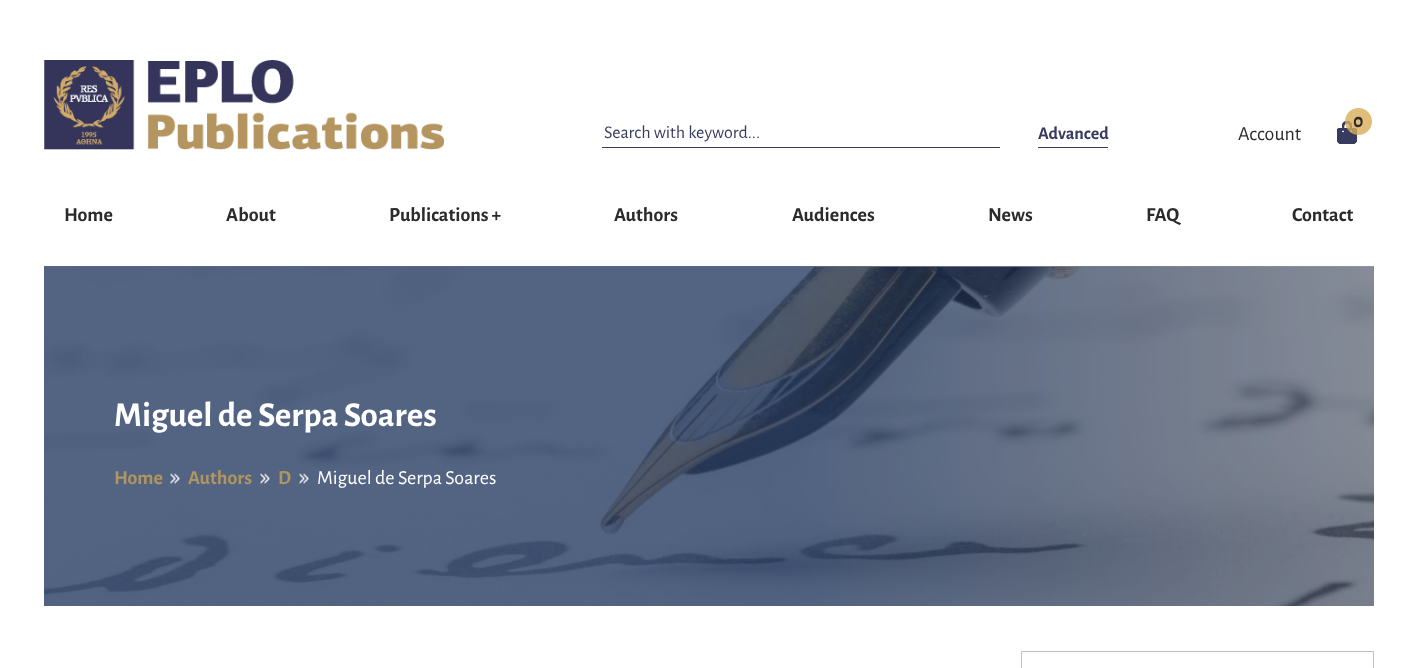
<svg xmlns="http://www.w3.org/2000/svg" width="1417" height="668">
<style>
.a{font:bold 20px Alegreya Sans;fill:#2b2b2d}
.b{font:18px Alegreya Sans;fill:#383b60}
.c{font:bold 18px Alegreya Sans;fill:#383b60}
.d{font:20px Alegreya Sans;fill:#2b2b2d}
.e{font:bold 35px Alegreya Sans;fill:#fff}
.f{font:bold 20px Alegreya Sans;fill:#af9562}
.g{font:20px Alegreya Sans;fill:#fff}
</style>
<rect width="100%" height="100%" fill="#fff"/>
<image href="1.png" x="44" y="60" width="400" height="90"/>
<image href="2.png" x="1337" y="121" width="20" height="23"/>
<circle fill="#d8ad58cc" cx="1358.5" cy="121.5" r="13.5"/>
<path fill="#383b60" d="M602 147h398v1H602z"/>
<path fill="#383b60" d="M1038 147h70v1H1038z"/>
<image href="3.png" x="44" y="266" width="1330" height="340"/>
<image href="4.png" x="170" y="473" width="10" height="11"/>
<image href="4.png" x="260" y="473" width="10" height="11"/>
<image href="5.png" x="299" y="473" width="10" height="11"/>
<path fill="none" stroke="#bdbecb" d="M1021.5 651.5h352v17H1021.5z"/>
<text class="a" x="1353" y="127">0</text>
<text class="b" x="604" y="138">Search with keyword...</text>
<text class="c" x="1038" y="139">Advanced</text>
<text class="d" x="1238" y="140">Account</text>
<text class="a" x="64" y="221">Home</text>
<text class="a" x="226" y="221">About</text>
<text class="a" x="389" y="221">Publications +</text>
<text class="a" x="614" y="221">Authors</text>
<text class="a" x="792" y="221">Audiences</text>
<text class="a" x="988" y="221">News</text>
<text class="a" x="1146" y="221">FAQ</text>
<text class="a" x="1292" y="221">Contact</text>
<text class="e" x="114" y="426">Miguel de Serpa Soares</text>
<text class="f" x="114" y="484">Home</text>
<text class="f" x="188" y="484">Authors</text>
<text class="f" x="278" y="484">D</text>
<text class="g" x="317" y="484">Miguel de Serpa Soares</text>
</svg>
